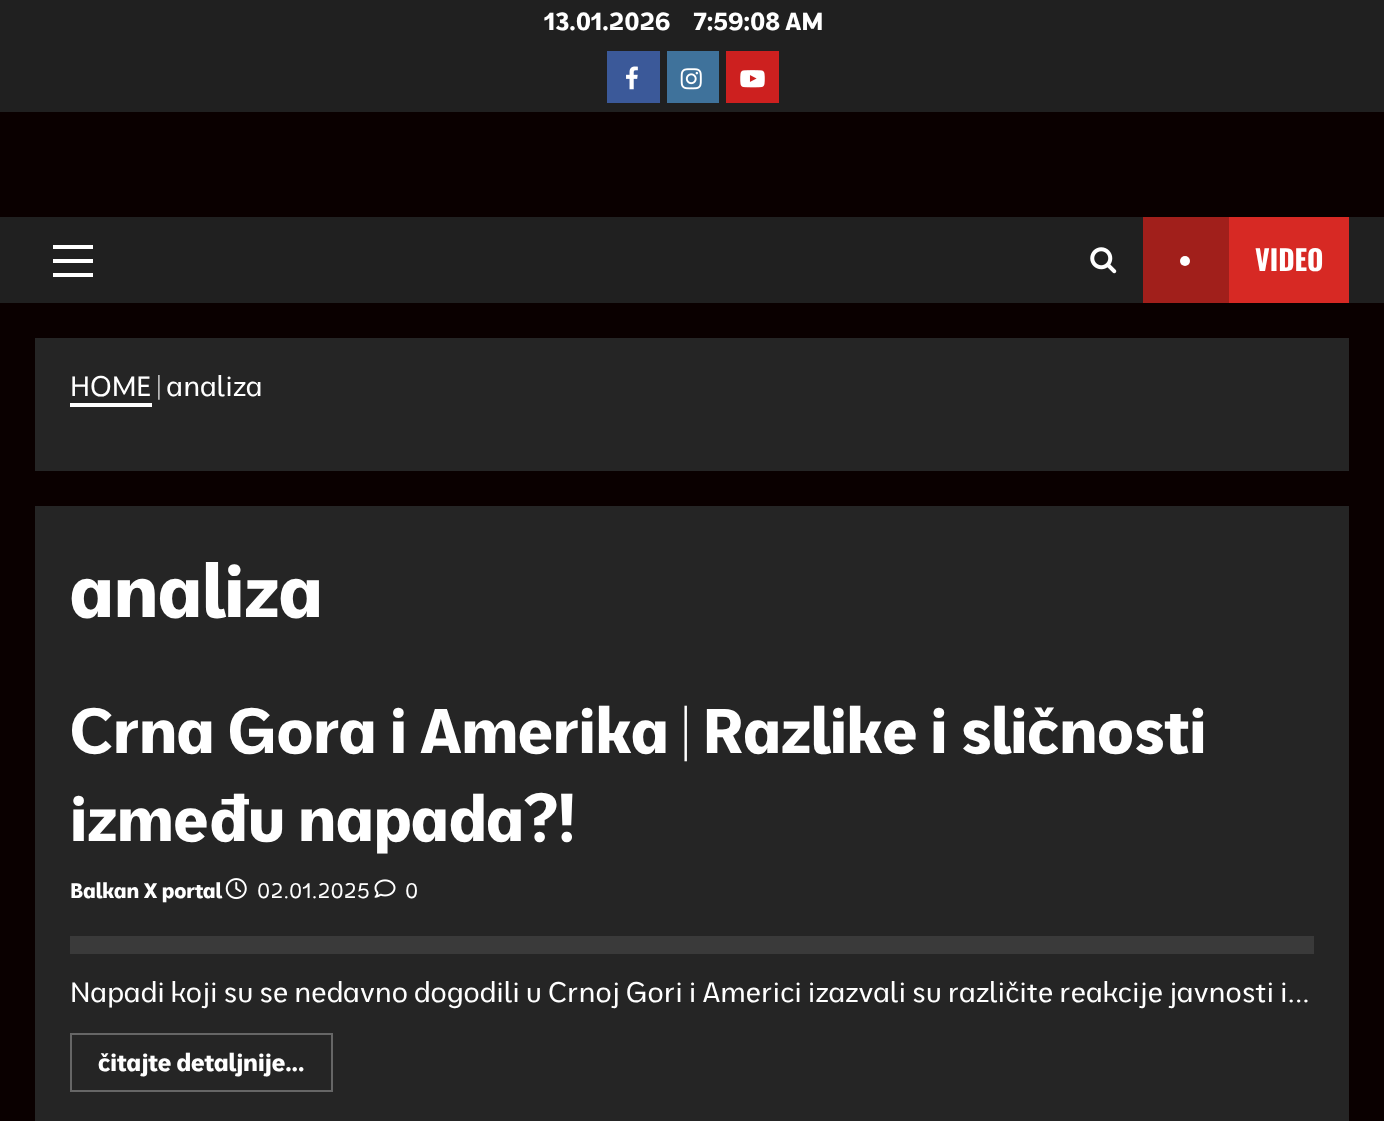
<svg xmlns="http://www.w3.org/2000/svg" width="1384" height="1121">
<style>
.a{font:bold 24.5px Moderustic;fill:#fff}
.b{font:bold 28px Oswald;fill:#fff}
.c{font:28px Moderustic;fill:#fff}
.d{font:bold 73.5px Moderustic;fill:#fff}
.e{font:bold 63px Moderustic;fill:#fff}
.f{font:bold 21px Moderustic;fill:#fff}
.g{font:21px Moderustic;fill:#fff}
</style>
<rect width="100%" height="100%" fill="#0a0000"/>
<path fill="#202020" d="M0 0h1384v112H0z"/>
<path fill="#3b5999" d="M607 51h53v52H607z"/>
<image href="1.png" x="626" y="66" width="12" height="24"/>
<path fill="#3f729b" d="M667 51h52v52H667z"/>
<image href="2.png" x="680" y="68" width="22" height="22"/>
<path fill="#cd201f" d="M726 51h53v52H726z"/>
<image href="3.png" x="740" y="70" width="25" height="18"/>
<path fill="#202020" d="M0 217h1384v86H0z"/>
<path fill="#fff" d="M53 259h40v4H53z"/>
<path fill="#fff" d="M53 245h40v4H53z"/>
<path fill="#fff" d="M53 273h40v4H53z"/>
<image href="4.png" x="1090" y="247" width="27" height="27"/>
<path fill="#d72924" d="M1229 217h120v86H1229z"/>
<path fill="#a11f1b" d="M1143 217h86v86H1143z"/>
<circle fill="#fff" cx="1185" cy="261" r="5"/>
<path fill="#252525" d="M35 338h1314v133H35z"/>
<path fill="#fff" d="M70 403h82v4H70z"/>
<path fill="#252525" d="M35 506h1314v615H35z"/>
<image href="5.png" x="225" y="878" width="22" height="22"/>
<image href="6.png" x="374" y="879" width="22" height="19"/>
<path fill="#3a3a3a" d="M70 936h1244v18H70z"/>
<path fill="none" stroke="#666" stroke-width="2" d="M71 1034h261v57H71z"/>
<text class="a" x="544" y="30">13.01.2026</text>
<text class="a" x="693" y="30">7:59:08 AM</text>
<text class="b" x="1255" y="271">VIDEO</text>
<text class="c" x="70" y="396">HOME | analiza</text>
<text class="d" x="70" y="617">analiza</text>
<text class="e" x="70" y="753">Crna Gora i Amerika | Razlike i sličnosti</text>
<text class="e" x="70" y="841">između napada?!</text>
<text class="f" x="70" y="898">Balkan X portal</text>
<text class="g" x="257" y="898">02.01.2025</text>
<text class="g" x="405" y="898">0</text>
<text class="c" x="70" y="1002">Napadi koji su se nedavno dogodili u Crnoj Gori i Americi izazvali su različite reakcije javnosti i...</text>
<text class="a" x="98" y="1071">čitajte detaljnije...</text>
</svg>
